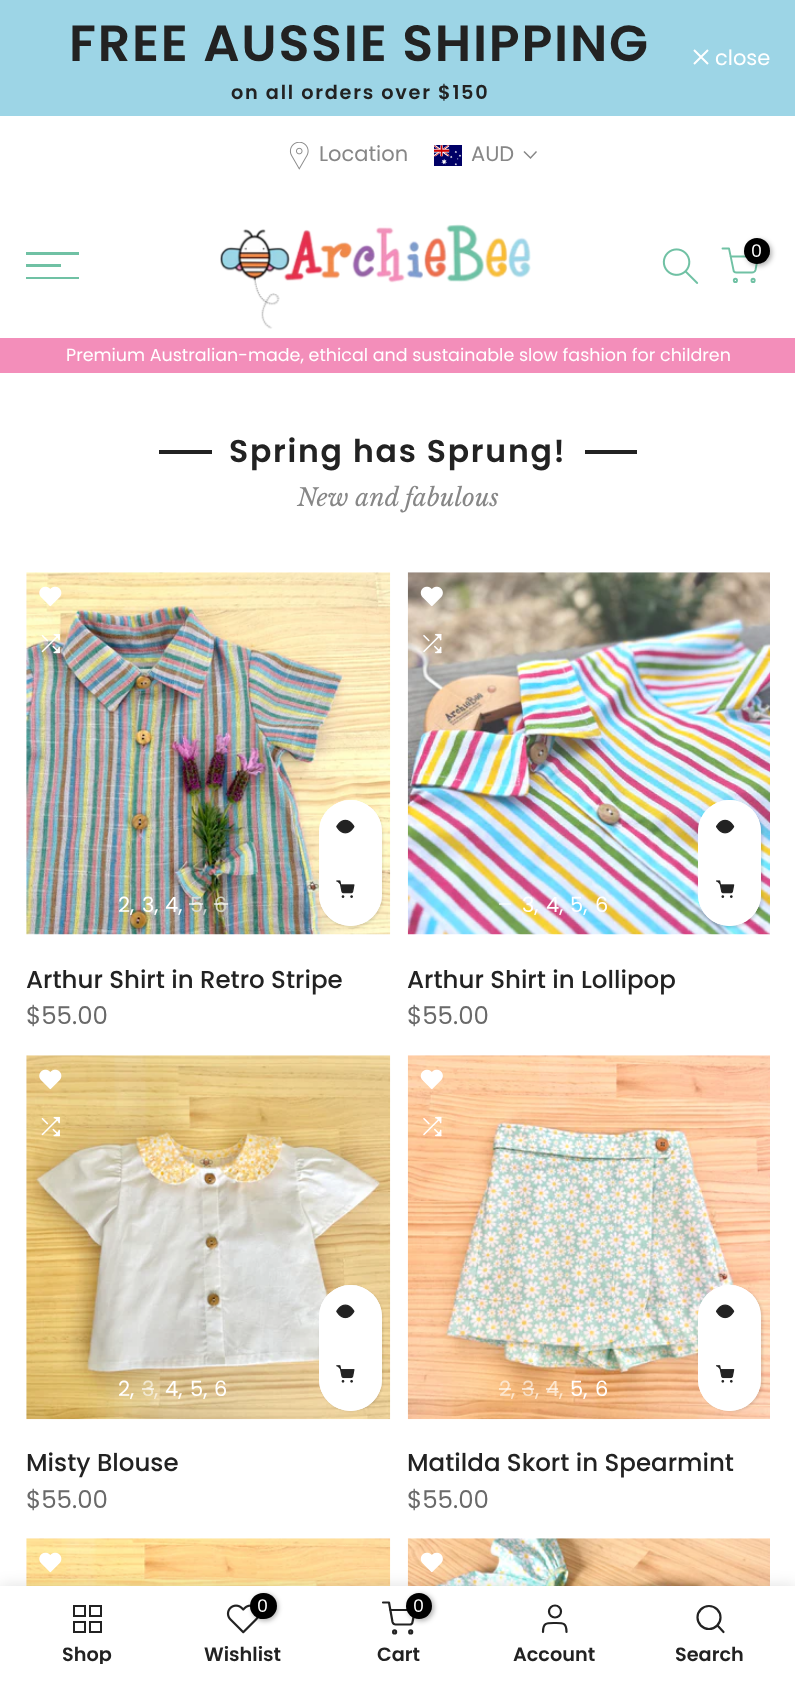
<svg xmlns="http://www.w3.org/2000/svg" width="795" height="1681">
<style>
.a{font:600 50.75px Poppins;letter-spacing:1.75px;fill:#222}
.b{font:600 19.25px Poppins;letter-spacing:1.75px;fill:#222}
.c{font:21px Poppins;fill:#fff}
.d{font:21px Poppins;fill:#878787}
.e{font:17.5px Poppins;fill:#fff}
.f{font:600 31.5px Poppins;letter-spacing:1.75px;fill:#222}
.g{font:italic 24.5px Libre Baskerville;fill:#878787}
.h{font:21px Poppins;fill:#d7dcd6}
.i{font:21px Poppins;fill:#c1cecc}
.j{font:21px Poppins;fill:#cfcfbe}
.k{font:500 24.5px Poppins;fill:#222}
.l{font:24.5px Poppins;fill:#696969}
.m{font:21px Poppins;fill:#f1e8d1}
.n{font:21px Poppins;fill:#f5ecd7}
.o{font:21px Poppins;fill:#fce6ce}
.p{font:21px Poppins;fill:#f7dfc7}
.q{font:600 19.25px Poppins;fill:#222}
</style>
<defs>
<clipPath id="clip1"><path d="M26 1645h121v19H26z"/></clipPath>
</defs>
<rect width="100%" height="100%" fill="#fff"/>
<path fill="#9dd5e6" d="M0 0h795v116H0z"/>
<path fill="none" stroke="#fff" stroke-width="2" d="M708 50l-14 14m14 0l-14-14"/>
<image href="1.png" x="289" y="142" width="20" height="28"/>
<image href="2.png" x="434" y="145" width="28" height="21"/>
<path fill="none" stroke="#878787" stroke-width="1.5" stroke-linecap="square" d="M536 152l-5.5 6l-6-6"/>
<image href="3.png" x="220" y="224" width="311" height="105"/>
<image href="4.png" x="662" y="248" width="37" height="36"/>
<path fill="none" stroke="#70c1a4" stroke-width="1.9" stroke-linecap="round" stroke-linejoin="round" d="M722.5 248.5h6.5l4.5 21.5c0 1.5 1.5 2.5 3 2.5h15.5c1.5 0 3-1 3.5-2.5l2.5-13.5h-27.5"/>
<rect fill="#0000004d" filter="blur(2.5px)" x="746" y="240" width="26" height="26" rx="13"/>
<circle fill="#000" cx="757" cy="251" r="13"/>
<circle fill="none" stroke="#70c1a4" stroke-width="1.9" cx="735.4" cy="280.4" r="1.6"/>
<circle fill="none" stroke="#70c1a4" stroke-width="1.9" cx="753.1" cy="280.4" r="1.6"/>
<path fill="#70c1a4" d="M26 252h53v3H26z"/>
<path fill="#70c1a4" d="M26 264h35v3H26z"/>
<path fill="#70c1a4" d="M26 277h53v2H26z"/>
<path fill="#f38eba" d="M0 338h795v35H0z"/>
<path fill="#222" d="M159 450h53v4H159z"/>
<path fill="#222" d="M585 450h52v4H585z"/>
<image href="5.png" x="26" y="572" width="365" height="363"/>
<image href="6.png" x="39" y="586" width="23" height="21"/>
<image href="7.png" x="41" y="634" width="19" height="20"/>
<rect fill="#0000001a" filter="blur(1px)" x="320" y="802" width="63" height="126" rx="31.5"/>
<rect fill="#fff" x="319" y="800" width="63" height="126" rx="31.5"/>
<circle fill="#fff" cx="350.5" cy="831.5" r="31.5"/>
<image href="8.png" x="336" y="819" width="19" height="15"/>
<circle fill="#fff" cx="350.5" cy="894.5" r="31.5"/>
<image href="9.png" x="336" y="880" width="19" height="18"/>
<image href="10.png" x="407" y="572" width="363" height="363"/>
<image href="11.png" x="420" y="586" width="23" height="21"/>
<image href="12.png" x="423" y="633" width="19" height="21"/>
<path fill="#ffffff99" d="M499 903h12v2H499z"/>
<rect fill="#0000001a" filter="blur(1px)" x="700" y="802" width="63" height="126" rx="31.5"/>
<rect fill="#fff" x="698" y="800" width="63" height="126" rx="31.5"/>
<circle fill="#fff" cx="729.5" cy="831.5" r="31.5"/>
<image href="13.png" x="716" y="819" width="19" height="15"/>
<circle fill="#fff" cx="729.5" cy="894.5" r="31.5"/>
<image href="14.png" x="716" y="880" width="19" height="18"/>
<image href="15.png" x="26" y="1055" width="365" height="365"/>
<image href="16.png" x="39" y="1069" width="23" height="21"/>
<image href="17.png" x="41" y="1116" width="19" height="21"/>
<rect fill="#0000001a" filter="blur(1px)" x="320" y="1286" width="63" height="126" rx="31.5"/>
<rect fill="#fff" x="319" y="1285" width="63" height="126" rx="31.5"/>
<circle fill="#fff" cx="350.5" cy="1316.5" r="31.5"/>
<image href="18.png" x="336" y="1304" width="19" height="15"/>
<circle fill="#fff" cx="350.5" cy="1379.5" r="31.5"/>
<image href="19.png" x="336" y="1365" width="19" height="18"/>
<image href="20.png" x="407" y="1055" width="363" height="365"/>
<image href="21.png" x="420" y="1069" width="23" height="21"/>
<image href="22.png" x="423" y="1116" width="19" height="21"/>
<rect fill="#0000001a" filter="blur(1px)" x="700" y="1286" width="63" height="126" rx="31.5"/>
<rect fill="#fff" x="698" y="1285" width="63" height="126" rx="31.5"/>
<circle fill="#fff" cx="729.5" cy="1316.5" r="31.5"/>
<image href="23.png" x="716" y="1304" width="19" height="15"/>
<circle fill="#fff" cx="729.5" cy="1379.5" r="31.5"/>
<image href="24.png" x="716" y="1365" width="19" height="18"/>
<image href="25.png" x="26" y="1538" width="365" height="48"/>
<image href="26.png" x="39" y="1552" width="23" height="21"/>
<image href="27.png" x="407" y="1538" width="363" height="48"/>
<image href="28.png" x="420" y="1552" width="23" height="21"/>
<path fill="#0000001f" filter="blur(8px)" d="M0 1586h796v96H0z"/>
<path fill="#fff" d="M0 1586h795v95H0z"/>
<path fill="none" stroke="#222" stroke-width="2" d="M74 1606h11v10H74z"/>
<path fill="none" stroke="#222" stroke-width="2" d="M90 1606h11v10H90z"/>
<path fill="none" stroke="#222" stroke-width="2" d="M74 1622h11v10H74z"/>
<path fill="none" stroke="#222" stroke-width="2" d="M90 1622h11v10H90z"/>
<image href="29.png" x="226" y="1604" width="33" height="30"/>
<rect fill="#0000004d" filter="blur(2.5px)" x="252" y="1594" width="26" height="27" rx="13"/>
<rect fill="#000" x="250" y="1593" width="27" height="26" rx="13"/>
<path fill="none" stroke="#222" stroke-width="2.2" stroke-linecap="round" stroke-linejoin="round" d="M383 1602.5h6l3.5 19.5c.5 1.5 1.5 2.5 3 2.5h14.5c1 0 2.5-1 2.5-2.5l2.5-12h-25"/>
<circle fill="none" stroke="#222" stroke-width="2.2" cx="410.7" cy="1631.9" r="1.5"/>
<rect fill="#0000004d" filter="blur(2.5px)" x="408" y="1594" width="26" height="27" rx="13"/>
<circle fill="#000" cx="419" cy="1606" r="13"/>
<circle fill="none" stroke="#222" stroke-width="2.2" cx="394.6" cy="1631.9" r="1.5"/>
<circle fill="none" stroke="#222" stroke-width="2.2" cx="555" cy="1611.5" r="6"/>
<path fill="none" stroke="#222" stroke-width="2.2" stroke-linecap="round" stroke-linejoin="round" d="M566.5 1632c0-9.5-3.5-9-11.5-9c-8.5 0-12-.5-12 9"/>
<circle fill="none" stroke="#222" stroke-width="2.2" cx="709" cy="1617.5" r="11.5"/>
<path fill="none" stroke="#222" stroke-width="2.2" stroke-linecap="round" stroke-linejoin="round" d="M723.5 1632l-6-6.5"/>
<text class="a" x="69" y="61">FREE AUSSIE SHIPPING</text>
<text class="b" x="231" y="99">on all orders over $150</text>
<text class="c" x="715" y="65">close</text>
<text class="d" x="319" y="161">Location</text>
<text class="d" x="471" y="161">AUD</text>
<text class="e" x="751" y="257">0</text>
<text class="e" x="66" y="361">Premium Australian-made, ethical and sustainable slow fashion for children</text>
<text class="f" x="229" y="462">Spring has Sprung!</text>
<text class="g" x="297" y="506">New and fabulous</text>
<text class="c" x="118" y="912">2,</text>
<text class="c" x="142" y="912">3,</text>
<text class="c" x="165" y="912">4,</text>
<text class="h" x="190" y="912">5</text>
<path fill="#ffffff99" d="M189 903h14v2H189z"/>
<text class="i" x="203" y="912">,</text>
<text class="j" x="214" y="912">6</text>
<path fill="#ffffff99" d="M214 903h14v2H214z"/>
<text class="k" x="26" y="988">Arthur Shirt in Retro Stripe</text>
<text class="l" x="26" y="1024">$55.00</text>
<text class="c" x="522" y="912">3,</text>
<text class="c" x="546" y="912">4,</text>
<text class="c" x="570" y="912">5,</text>
<text class="c" x="595" y="912">6</text>
<text class="k" x="407" y="988">Arthur Shirt in Lollipop</text>
<text class="l" x="407" y="1024">$55.00</text>
<text class="c" x="118" y="1396">2,</text>
<text class="m" x="142" y="1396">3</text>
<path fill="#ffffff99" d="M142 1388h12v2H142z"/>
<text class="n" x="154" y="1396">,</text>
<text class="c" x="165" y="1396">4,</text>
<text class="c" x="190" y="1396">5,</text>
<text class="c" x="214" y="1396">6</text>
<text class="k" x="26" y="1471">Misty Blouse</text>
<text class="l" x="26" y="1508">$55.00</text>
<text class="o" x="499" y="1396">2</text>
<path fill="#ffffff99" d="M499 1388h12v2H499z"/>
<text class="o" x="511" y="1396">,</text>
<text class="p" x="522" y="1396">3</text>
<path fill="#ffffff99" d="M522 1388h12v2H522z"/>
<text class="o" x="535" y="1396">,</text>
<text class="o" x="546" y="1396">4</text>
<path fill="#ffffff99" d="M546 1388h12v2H546z"/>
<text class="o" x="559" y="1396">,</text>
<text class="c" x="570" y="1396">5,</text>
<text class="c" x="595" y="1396">6</text>
<text class="k" x="407" y="1471">Matilda Skort in Spearmint</text>
<text class="l" x="407" y="1508">$55.00</text>
<g clip-path="url(#clip1)">
<text class="q" x="62" y="1661">Shop</text>
</g>
<text class="e" x="257" y="1612">0</text>
<text class="q" x="204" y="1661">Wishlist</text>
<text class="e" x="413" y="1612">0</text>
<text class="q" x="377" y="1661">Cart</text>
<text class="q" x="513" y="1661">Account</text>
<text class="q" x="675" y="1661">Search</text>
</svg>
